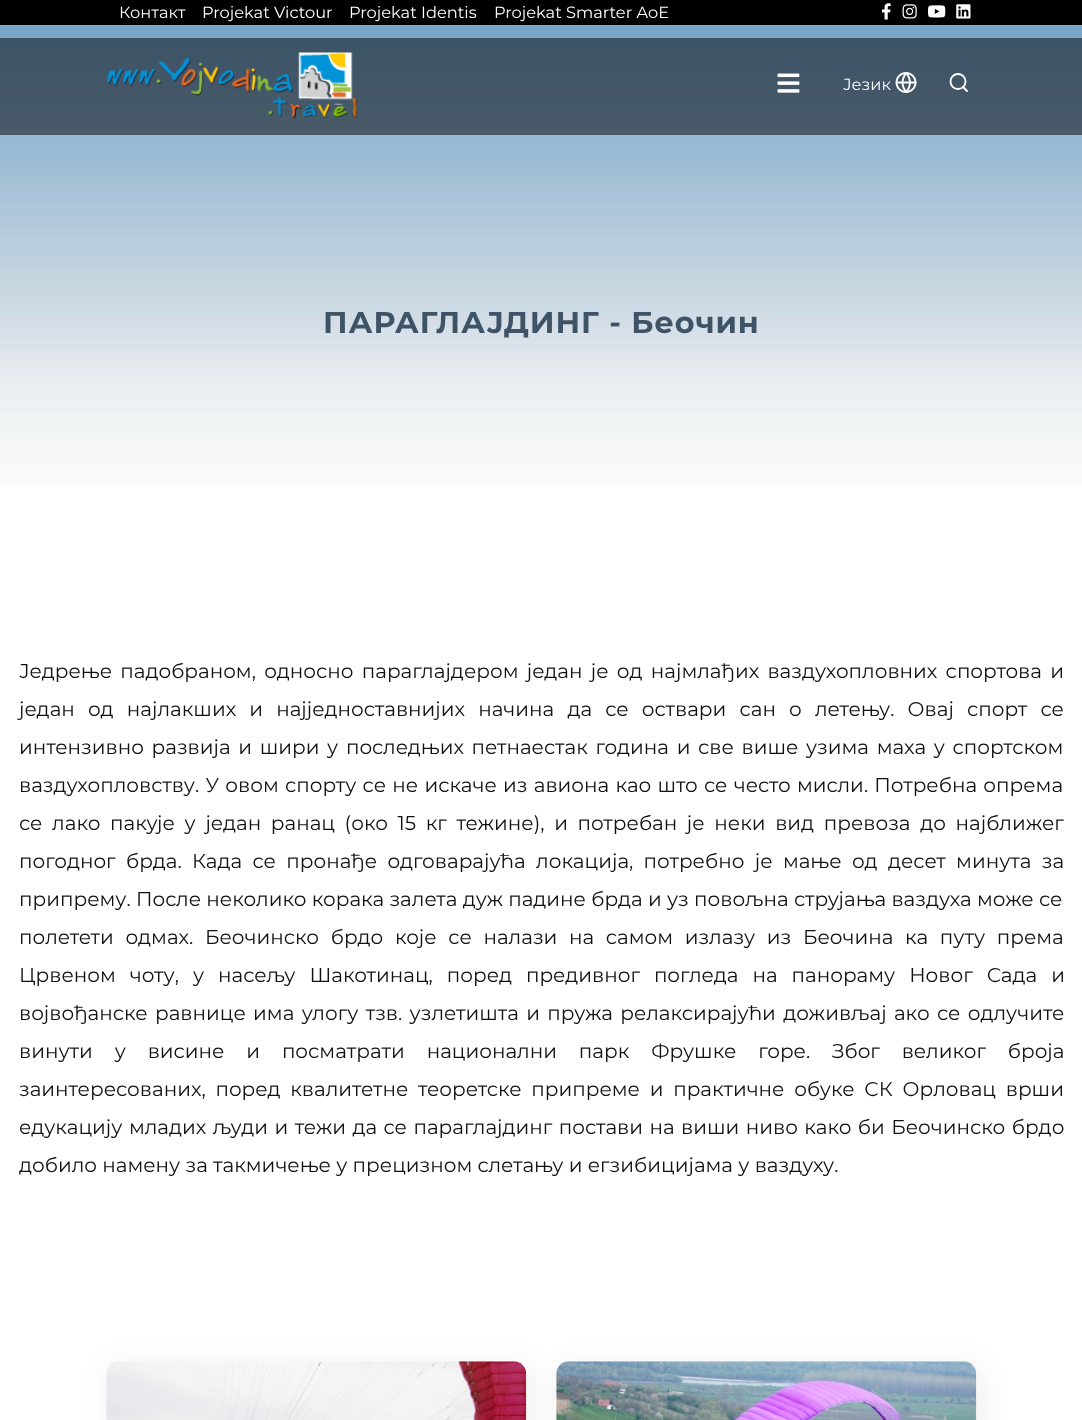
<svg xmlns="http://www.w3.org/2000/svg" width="1082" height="1420">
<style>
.a{font:16.25px Montserrat;fill:#fff}
.b{font:bold 30.2px Montserrat;letter-spacing:0.9px;fill:#3e5466}
.c{font:20px Montserrat;fill:#111}
</style>
<rect width="100%" height="100%" fill="#fff"/>
<path fill="#000" d="M0 0h1082v25H0z"/>
<image href="1.png" x="882" y="3" width="9" height="17"/>
<image href="2.png" x="902" y="4" width="15" height="15"/>
<image href="3.png" x="928" y="5" width="18" height="13"/>
<image href="4.png" x="956" y="4" width="15" height="15"/>
<image href="8.png" x="0" y="25" width="1082" height="460"/>
<path fill="#00000080" d="M0 38h1082v97H0z"/>
<image href="5.png" x="106" y="52" width="253" height="66"/>
<image href="6.png" x="777" y="73" width="23" height="20"/>
<image href="7.png" x="895" y="72" width="22" height="21"/>
<circle fill="none" stroke="#fff" stroke-width="1.9" cx="958" cy="81.5" r="7.5"/>
<path fill="none" stroke="#fff" stroke-width="1.9" stroke-linecap="round" stroke-linejoin="round" d="M967 91l-4-4"/>
<rect fill="#00000012" filter="blur(15.5px)" x="110" y="1366" width="420" height="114" rx="13"/>
<image href="9.png" x="106" y="1361" width="421" height="59"/>
<rect fill="#00000012" filter="blur(15.5px)" x="560" y="1366" width="420" height="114" rx="13"/>
<image href="10.png" x="556" y="1361" width="421" height="59"/>
<text class="a" x="119" y="18">Контакт</text>
<text class="a" x="202" y="18">Projekat Victour</text>
<text class="a" x="349" y="18">Projekat Identis</text>
<text class="a" x="494" y="18">Projekat Smarter AoE</text>
<text class="a" x="843" y="90">Језик</text>
<text class="b" x="323" y="333">ПАРАГЛАЈДИНГ - Беочин</text>
<text class="c" x="19" y="678" word-spacing="3">Једрење падобраном, односно параглајдером један је од најмлађих ваздухопловних спортова и</text>
<text class="c" x="19" y="716" word-spacing="7.9">један од најлакших и најједноставнијих начина да се оствари сан о летењу. Овај спорт се</text>
<text class="c" x="19" y="754" word-spacing="2.4">интензивно развија и шири у последњих петнаестак година и све више узима маха у спортском</text>
<text class="c" x="19" y="792" word-spacing="1">ваздухопловству. У овом спорту се не искаче из авиона као што се често мисли. Потребна опрема</text>
<text class="c" x="19" y="830" word-spacing="4.4">се лако пакује у један ранац (око 15 кг тежине), и потребан је неки вид превоза до најближег</text>
<text class="c" x="19" y="868" word-spacing="5.1">погодног брда. Када се пронађе одговарајућа локација, потребно је мање од десет минута за</text>
<text class="c" x="19" y="906">припрему. После неколико корака залета дуж падине брда и уз повољна струјања ваздуха може се</text>
<text class="c" x="19" y="944" word-spacing="6.4">полетети одмах. Беочинско брдо које се налази на самом излазу из Беочина ка путу према</text>
<text class="c" x="19" y="982" word-spacing="8.75">Црвеном чоту, у насељу Шакотинац, поред предивног погледа на панораму Новог Сада и</text>
<text class="c" x="19" y="1020" word-spacing="2.1">војвођанске равнице има улогу тзв. узлетишта и пружа релаксирајући доживљај ако се одлучите</text>
<text class="c" x="19" y="1058" word-spacing="16.6">винути у висине и посматрати национални парк Фрушке горе. Због великог броја</text>
<text class="c" x="19" y="1096" word-spacing="4.5">заинтересованих, поред квалитетне теоретске припреме и практичне обуке СК Орловац врши</text>
<text class="c" x="19" y="1134" word-spacing="1.2">едукацију младих људи и тежи да се параглајдинг постави на виши ниво како би Беочинско брдо</text>
<text class="c" x="19" y="1172">добило намену за такмичење у прецизном слетању и егзибицијама у ваздуху.</text>
</svg>
